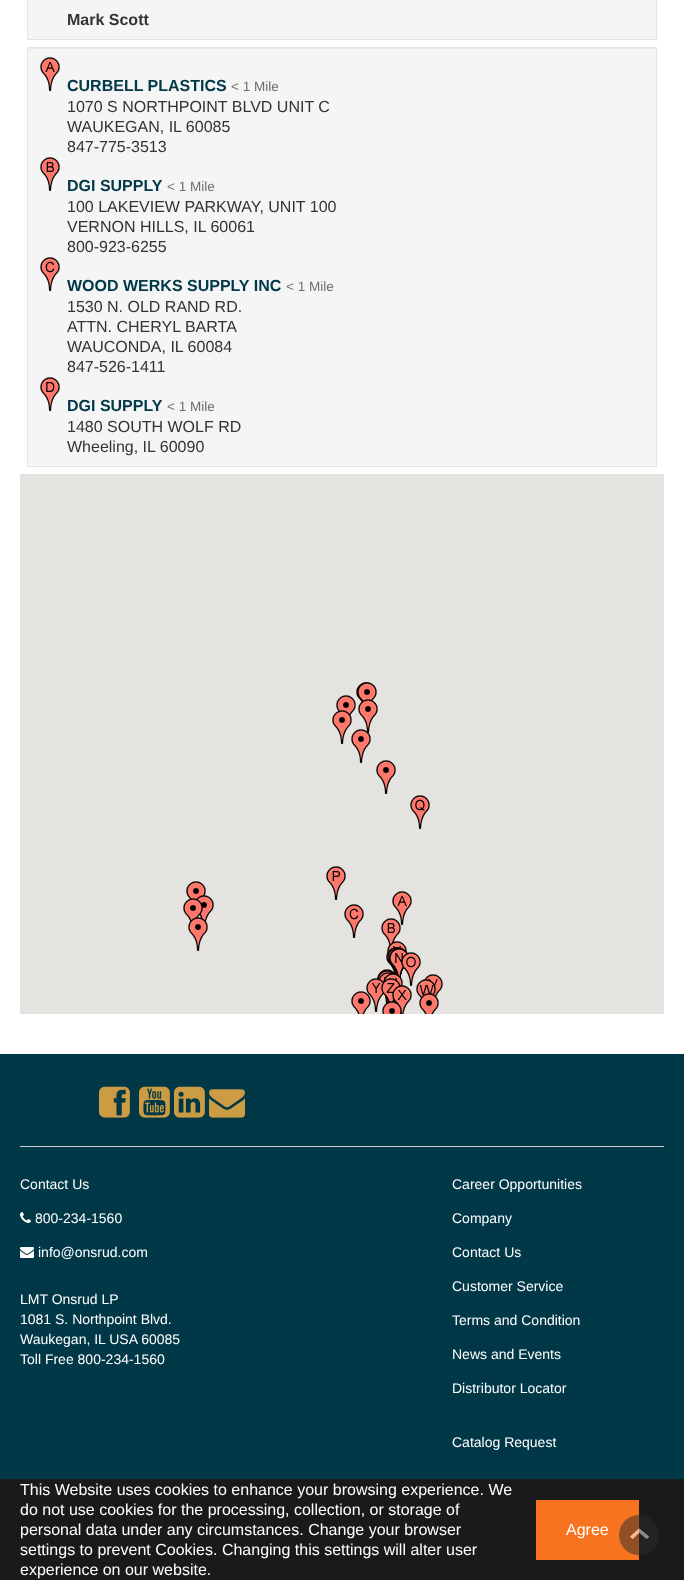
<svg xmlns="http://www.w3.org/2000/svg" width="684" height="1580">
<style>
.a{font:bold 16px Liberation Sans;fill:#333}
.b{font:bold 16px Liberation Sans;fill:#003849}
.c{font:13.5px Liberation Sans;fill:#6e6e6e}
.d{font:16px Liberation Sans;fill:#333}
.e{font:14px Liberation Sans;fill:#fff}
.f{font:16px Liberation Sans;fill:#fff}
</style>
<rect width="100%" height="100%" fill="#fff"/>
<rect fill="#f5f5f5" stroke="#e3e3e3" x="27.5" y="-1.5" width="629" height="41" rx="0.5"/>
<rect fill="#f5f5f5" x="27" y="47" width="630" height="420" rx="1"/>
<path fill="#e9e9e9" d="M28 48h628v1H28z"/>
<rect fill="none" stroke="#e3e3e3" x="27.5" y="47.5" width="629" height="419" rx="0.5"/>
<image href="1.png" x="40" y="57" width="20" height="34"/>
<image href="2.png" x="40" y="157" width="20" height="34"/>
<image href="3.png" x="40" y="257" width="20" height="34"/>
<image href="4.png" x="40" y="377" width="20" height="34"/>
<path fill="#e5e3df" d="M20 474h644v540H20z"/>
<image href="5.png" x="356" y="682" width="20" height="21"/>
<image href="6.png" x="357" y="682" width="20" height="20"/>
<image href="7.png" x="336" y="695" width="20" height="34"/>
<image href="8.png" x="358" y="699" width="20" height="34"/>
<image href="9.png" x="332" y="710" width="20" height="34"/>
<image href="10.png" x="351" y="729" width="20" height="34"/>
<image href="7.png" x="376" y="760" width="20" height="34"/>
<image href="11.png" x="410" y="795" width="20" height="34"/>
<image href="12.png" x="186" y="881" width="20" height="19"/>
<image href="13.png" x="326" y="866" width="20" height="34"/>
<image href="14.png" x="392" y="891" width="20" height="34"/>
<image href="16.png" x="196" y="895" width="18" height="27"/>
<image href="15.png" x="183" y="898" width="20" height="24"/>
<image href="17.png" x="344" y="904" width="20" height="34"/>
<image href="18.png" x="188" y="917" width="20" height="34"/>
<image href="19.png" x="381" y="918" width="20" height="28"/>
<image href="20.png" x="387" y="941" width="20" height="13"/>
<image href="21.png" x="386" y="947" width="17" height="27"/>
<image href="22.png" x="387" y="947" width="19" height="28"/>
<image href="23.png" x="389" y="948" width="19" height="30"/>
<image href="24.png" x="389" y="948" width="19" height="30"/>
<image href="25.png" x="389" y="948" width="19" height="30"/>
<image href="26.png" x="389" y="948" width="19" height="30"/>
<image href="27.png" x="389" y="948" width="19" height="30"/>
<image href="28.png" x="389" y="948" width="19" height="30"/>
<image href="29.png" x="389" y="948" width="19" height="30"/>
<image href="31.png" x="389" y="948" width="19" height="30"/>
<image href="30.png" x="377" y="969" width="19" height="34"/>
<image href="32.png" x="401" y="952" width="20" height="34"/>
<image href="33.png" x="377" y="970" width="18" height="34"/>
<image href="34.png" x="378" y="972" width="16" height="32"/>
<image href="36.png" x="383" y="973" width="20" height="29"/>
<image href="35.png" x="366" y="978" width="18" height="34"/>
<image href="37.png" x="424" y="974" width="19" height="23"/>
<image href="38.png" x="351" y="991" width="20" height="23"/>
<image href="39.png" x="381" y="978" width="20" height="25"/>
<image href="40.png" x="392" y="985" width="20" height="29"/>
<image href="41.png" x="416" y="979" width="20" height="34"/>
<image href="42.png" x="382" y="1001" width="20" height="13"/>
<image href="43.png" x="419" y="993" width="20" height="21"/>
<path fill="#003848" d="M0 1054h684v425H0z"/>
<path fill="#ccc" d="M20 1146h644v1H20z"/>
<image href="44.png" x="99" y="1086" width="31" height="32"/>
<image href="45.png" x="139" y="1086" width="31" height="32"/>
<image href="46.png" x="174" y="1086" width="31" height="32"/>
<image href="47.png" x="209" y="1089" width="36" height="29"/>
<image href="48.png" x="20" y="1212" width="11" height="11"/>
<image href="49.png" x="20" y="1247" width="14" height="11"/>
<path fill="#1a1a1a" d="M0 1479h684v101H0z"/>
<path fill="#f87320" d="M536 1500h103v60H536z"/>
<image href="50.png" x="619" y="1515" width="40" height="41"/>
<text class="a" x="67" y="25">Mark Scott</text>
<text class="b" x="67" y="91">CURBELL PLASTICS</text>
<text class="c" x="231" y="91">&lt; 1 Mile</text>
<text class="d" x="67" y="112">1070 S NORTHPOINT BLVD UNIT C</text>
<text class="d" x="67" y="132">WAUKEGAN, IL 60085</text>
<text class="d" x="67" y="152">847-775-3513</text>
<text class="b" x="67" y="191">DGI SUPPLY</text>
<text class="c" x="167" y="191">&lt; 1 Mile</text>
<text class="d" x="67" y="212">100 LAKEVIEW PARKWAY, UNIT 100</text>
<text class="d" x="67" y="232">VERNON HILLS, IL 60061</text>
<text class="d" x="67" y="252">800-923-6255</text>
<text class="b" x="67" y="291">WOOD WERKS SUPPLY INC</text>
<text class="c" x="286" y="291">&lt; 1 Mile</text>
<text class="d" x="67" y="312">1530 N. OLD RAND RD.</text>
<text class="d" x="67" y="332">ATTN. CHERYL BARTA</text>
<text class="d" x="67" y="352">WAUCONDA, IL 60084</text>
<text class="d" x="67" y="372">847-526-1411</text>
<text class="b" x="67" y="411">DGI SUPPLY</text>
<text class="c" x="167" y="411">&lt; 1 Mile</text>
<text class="d" x="67" y="432">1480 SOUTH WOLF RD</text>
<text class="d" x="67" y="452">Wheeling, IL 60090</text>
<text class="e" x="20" y="1189">Contact Us</text>
<text class="e" x="35" y="1223">800-234-1560</text>
<text class="e" x="38" y="1257">info@onsrud.com</text>
<text class="e" x="20" y="1304">LMT Onsrud LP</text>
<text class="e" x="20" y="1324">1081 S. Northpoint Blvd.</text>
<text class="e" x="20" y="1344">Waukegan, IL USA 60085</text>
<text class="e" x="20" y="1364">Toll Free 800-234-1560</text>
<text class="e" x="452" y="1189">Career Opportunities</text>
<text class="e" x="452" y="1223">Company</text>
<text class="e" x="452" y="1257">Contact Us</text>
<text class="e" x="452" y="1291">Customer Service</text>
<text class="e" x="452" y="1325">Terms and Condition</text>
<text class="e" x="452" y="1359">News and Events</text>
<text class="e" x="452" y="1393">Distributor Locator</text>
<text class="e" x="452" y="1447">Catalog Request</text>
<text class="f" x="20" y="1495">This Website uses cookies to enhance your browsing experience. We</text>
<text class="f" x="20" y="1515">do not use cookies for the processing, collection, or storage of</text>
<text class="f" x="20" y="1535">personal data under any circumstances. Change your browser</text>
<text class="f" x="20" y="1555">settings to prevent Cookies. Changing this settings will alter user</text>
<text class="f" x="20" y="1575">experience on our website.</text>
<text class="f" x="566" y="1535">Agree</text>
</svg>
